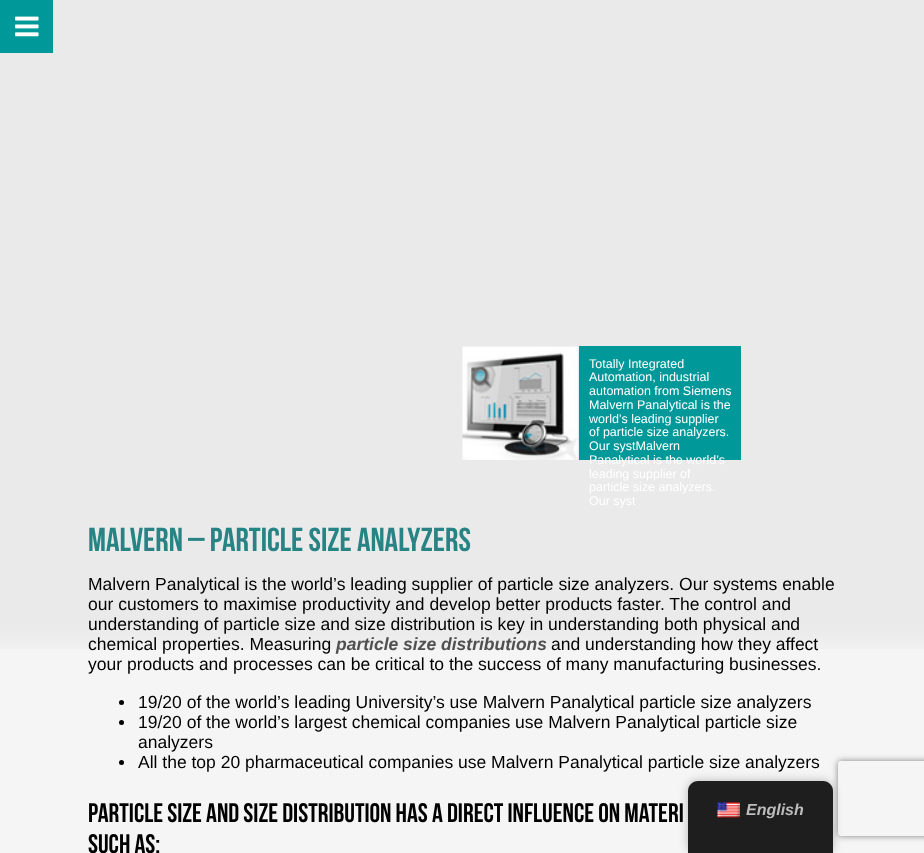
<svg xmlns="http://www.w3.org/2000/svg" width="924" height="853">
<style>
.a{font:12.5px Liberation Sans;fill:#fff}
.b{font:33.25px Bebas Neue;fill:#278384}
.c{font:17.5px Liberation Sans;fill:#000}
.d{font:italic bold 17.5px Liberation Sans;fill:#505050}
.e{font:26.7px Bebas Neue;fill:#000}
.f{font:italic bold 16px Liberation Sans;fill:#bdbdbd}
</style>
<defs>
<clipPath id="clip1"><path d="M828 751h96v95h-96zm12.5 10h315c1.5 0 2.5 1 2.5 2.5v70c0 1.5-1 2.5-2.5 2.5h-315c-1.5 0-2.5-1-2.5-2.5v-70c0-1.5 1-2.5 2.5-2.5z" clip-rule="evenodd"/></clipPath>
</defs>
<rect width="100%" height="100%" fill="#f5f5f5"/>
<image href="1.png" x="0" y="0" width="924" height="649"/>
<path fill="#009899" d="M0 0h53v53H0z"/>
<image href="2.png" x="15" y="16" width="24" height="21"/>
<path fill="#009899" d="M579 346h162v114H579z"/>
<path fill="#ccc" d="M463 346h116v114H463z"/>
<image href="3.png" x="462" y="346" width="117" height="114"/>
<circle fill="#000" cx="121.5" cy="702.5" r="2.5"/>
<circle fill="#000" cx="121.5" cy="722.5" r="2.5"/>
<circle fill="#000" cx="121.5" cy="762.5" r="2.5"/>
<rect fill="#00000040" filter="blur(5px)" x="688" y="781" width="145" height="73" rx="10"/>
<g clip-path="url(#clip1)">
<rect fill="#808080" filter="blur(3px)" x="838" y="761" width="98" height="75" rx="2.5"/>
</g>
<path fill="#1e1e1e" d="M698 781h125c5.5 0 10 4.5 10 10v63h-145v-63c0-5.5 4.5-10 10-10z"/>
<image href="4.png" x="717" y="802" width="23" height="16"/>
<text class="a" x="589" y="368">Totally Integrated</text>
<text class="a" x="589" y="381">Automation, industrial</text>
<text class="a" x="589" y="395">automation from Siemens</text>
<text class="a" x="589" y="409">Malvern Panalytical is the</text>
<text class="a" x="589" y="423">world’s leading supplier</text>
<text class="a" x="589" y="436">of particle size analyzers.</text>
<text class="a" x="589" y="450">Our systMalvern</text>
<text class="a" x="589" y="464">Panalytical is the world’s</text>
<text class="a" x="589" y="478">leading supplier of</text>
<text class="a" x="589" y="491">particle size analyzers.</text>
<text class="a" x="589" y="505">Our syst</text>
<text class="b" x="88" y="551">MALVERN – Particle size analyzers</text>
<text class="c" x="88" y="590">Malvern Panalytical is the world’s leading supplier of particle size analyzers. Our systems enable</text>
<text class="c" x="88" y="610">our customers to maximise productivity and develop better products faster. The control and</text>
<text class="c" x="88" y="630">understanding of particle size and size distribution is key in understanding both physical and</text>
<text class="c" x="88" y="650">chemical properties. Measuring</text>
<text class="d" x="336" y="650">particle size distributions</text>
<text class="c" x="551" y="650">and understanding how they affect</text>
<text class="c" x="88" y="670">your products and processes can be critical to the success of many manufacturing businesses.</text>
<text class="c" x="138" y="708">19/20 of the world’s leading University’s use Malvern Panalytical particle size analyzers</text>
<text class="c" x="138" y="728">19/20 of the world’s largest chemical companies use Malvern Panalytical particle size</text>
<text class="c" x="138" y="748">analyzers</text>
<text class="c" x="138" y="768">All the top 20 pharmaceutical companies use Malvern Panalytical particle size analyzers</text>
<text class="e" x="88" y="822">Particle size and size distribution has a direct influence on materi</text>
<text class="e" x="88" y="853">such as:</text>
<text class="f" x="746" y="815">English</text>
</svg>
